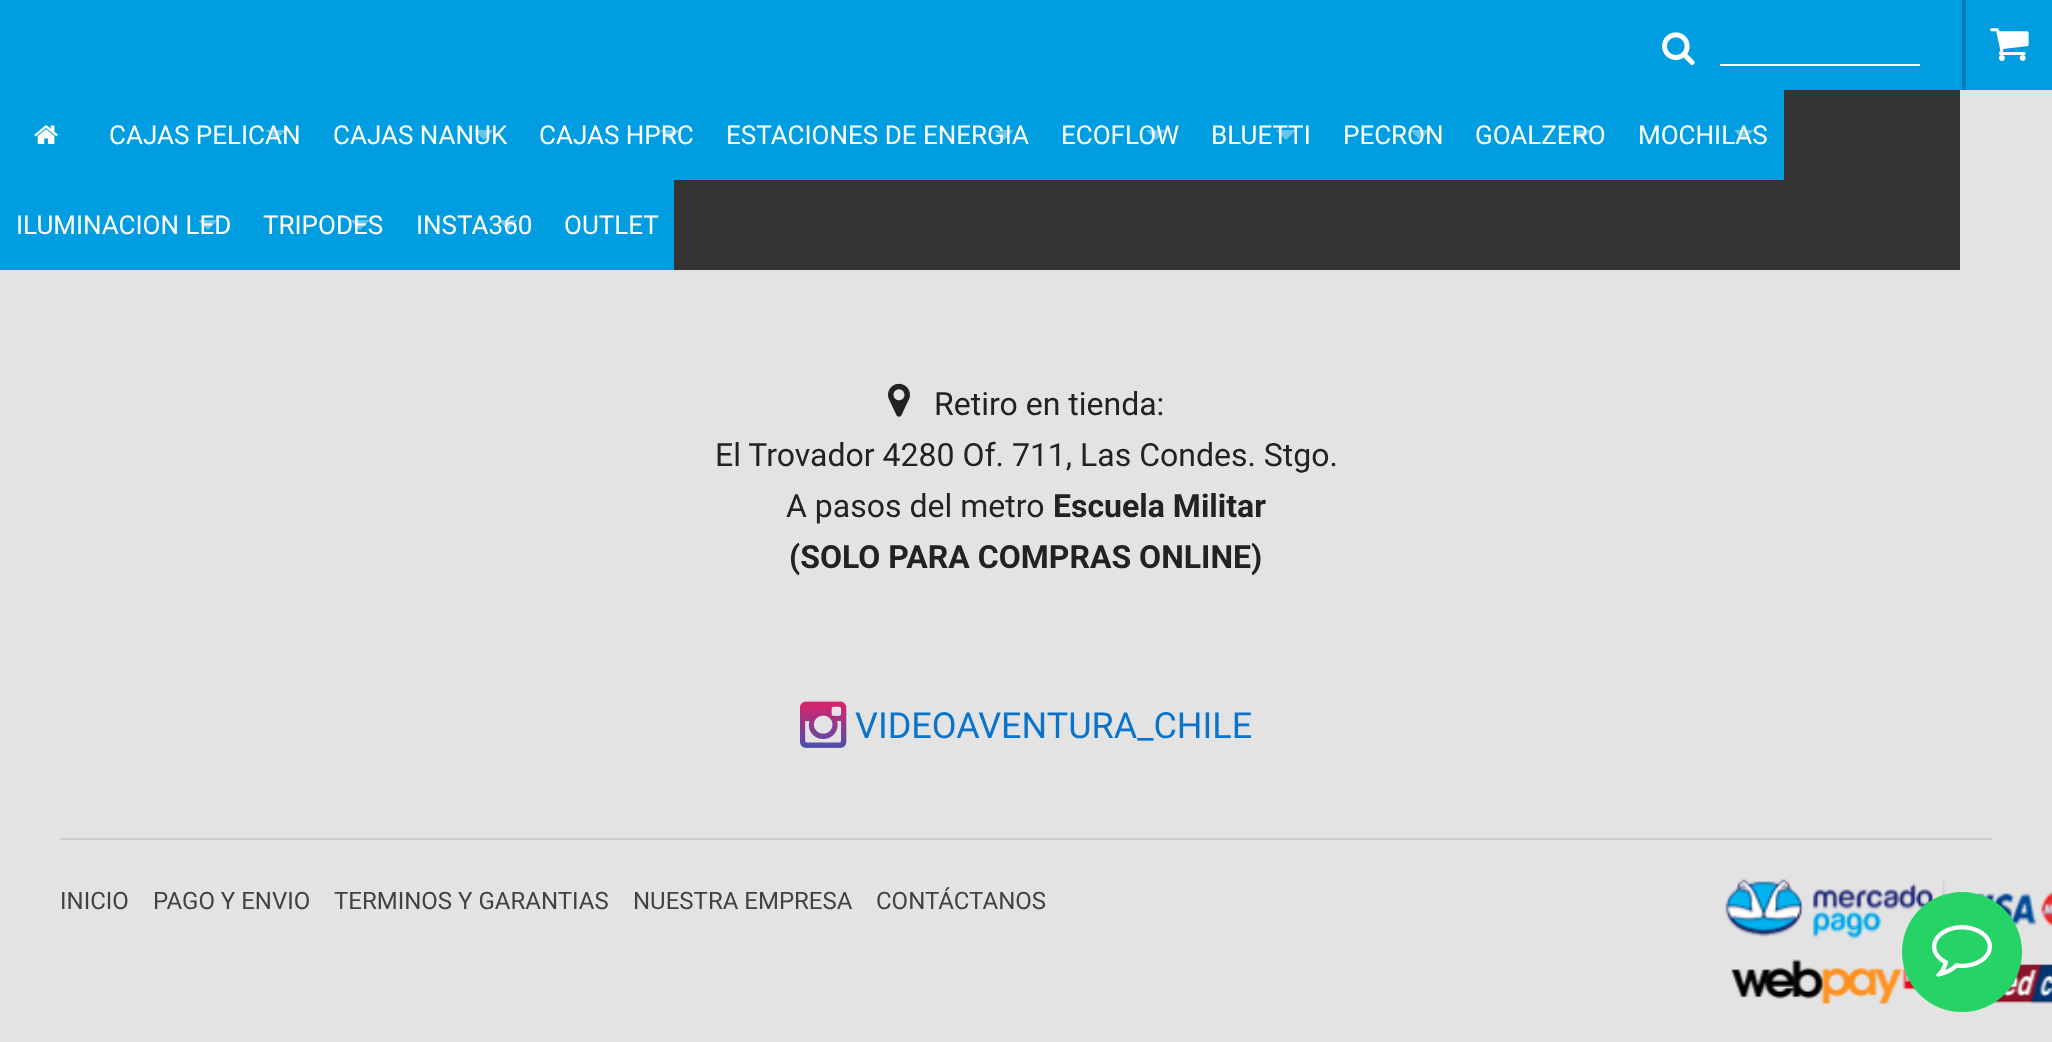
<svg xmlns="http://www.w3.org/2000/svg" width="2052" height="1042">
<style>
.a{font:26px Roboto;fill:#fff}
.b{font:32px Roboto;fill:#222}
.c{font:bold 32px Roboto;fill:#222}
.d{font:36px Roboto;fill:#0974c9}
.e{font:24px Roboto;fill:#414243}
</style>
<rect width="100%" height="100%" fill="#e3e3e4"/>
<path fill="#009de0" d="M0 0h2052v90H0z"/>
<path fill="#017eaf" d="M1962 0h4v90H1962z"/>
<image href="1.png" x="1990" y="28" width="39" height="33"/>
<image href="2.png" x="1662" y="32" width="33" height="33"/>
<path fill="#fff" d="M1720 64h200v2H1720z"/>
<path fill="#333" d="M674 90h1286v180H674z"/>
<path fill="#009de0" d="M0 90h1784v90H0z"/>
<image href="3.png" x="34" y="125" width="24" height="19"/>
<path fill="#009de0" d="M0 180h548v90H0z"/>
<path fill="#009de0" d="M548 180h126v90H548z"/>
<image href="4.png" x="888" y="383" width="22" height="34"/>
<image href="5.png" x="800" y="701" width="47" height="47"/>
<path fill="#ccc" d="M60 838h1932v2H60z"/>
<image href="6.png" x="1725" y="879" width="327" height="61"/>
<image href="7.png" x="1731" y="959" width="321" height="45"/>
<circle fill="#25d366" cx="1962" cy="952" r="60"/>
<image href="8.png" x="1932" y="925" width="60" height="52"/>
<text class="a" x="109" y="144">CAJAS PELICAN</text>
<path fill="#ffffff66" d="M266 130h20l-10 10z"/>
<text class="a" x="333" y="144">CAJAS NANUK</text>
<path fill="#ffffff66" d="M474 130h20l-10 10z"/>
<text class="a" x="539" y="144">CAJAS HPRC</text>
<path fill="#ffffff66" d="M660 130h20l-10 10z"/>
<text class="a" x="726" y="144">ESTACIONES DE ENERGIA</text>
<path fill="#ffffff66" d="M994 130h20l-10 10z"/>
<text class="a" x="1061" y="144">ECOFLOW</text>
<path fill="#ffffff66" d="M1146 130h20l-10 10z"/>
<text class="a" x="1211" y="144">BLUETTI</text>
<path fill="#ffffff66" d="M1276 130h20l-10 10z"/>
<text class="a" x="1343" y="144">PECRON</text>
<path fill="#ffffff66" d="M1410 130h20l-10 10z"/>
<text class="a" x="1475" y="144">GOALZERO</text>
<path fill="#ffffff66" d="M1572 130h20l-10 10z"/>
<text class="a" x="1638" y="144">MOCHILAS</text>
<path fill="#ffffff66" d="M1734 130h20l-10 10z"/>
<text class="a" x="16" y="234">ILUMINACION LED</text>
<path fill="#ffffff66" d="M198 220h20l-10 10z"/>
<text class="a" x="263" y="234">TRIPODES</text>
<path fill="#ffffff66" d="M350 220h20l-10 10z"/>
<text class="a" x="416" y="234">INSTA360</text>
<path fill="#ffffff66" d="M498 220h20l-10 10z"/>
<text class="a" x="564" y="234">OUTLET</text>
<text class="b" x="934" y="415">Retiro en tienda:</text>
<text class="b" x="715" y="466">El Trovador 4280 Of. 711, Las Condes. Stgo.</text>
<text class="b" x="786" y="517">A pasos del metro</text>
<text class="c" x="1053" y="517">Escuela Militar</text>
<text class="c" x="789" y="568">(SOLO PARA COMPRAS ONLINE)</text>
<text class="d" x="855" y="738">VIDEOAVENTURA_CHILE</text>
<text class="e" x="60" y="909">INICIO</text>
<text class="e" x="153" y="909">PAGO Y ENVIO</text>
<text class="e" x="334" y="909">TERMINOS Y GARANTIAS</text>
<text class="e" x="633" y="909">NUESTRA EMPRESA</text>
<text class="e" x="876" y="909">CONTÁCTANOS</text>
</svg>
